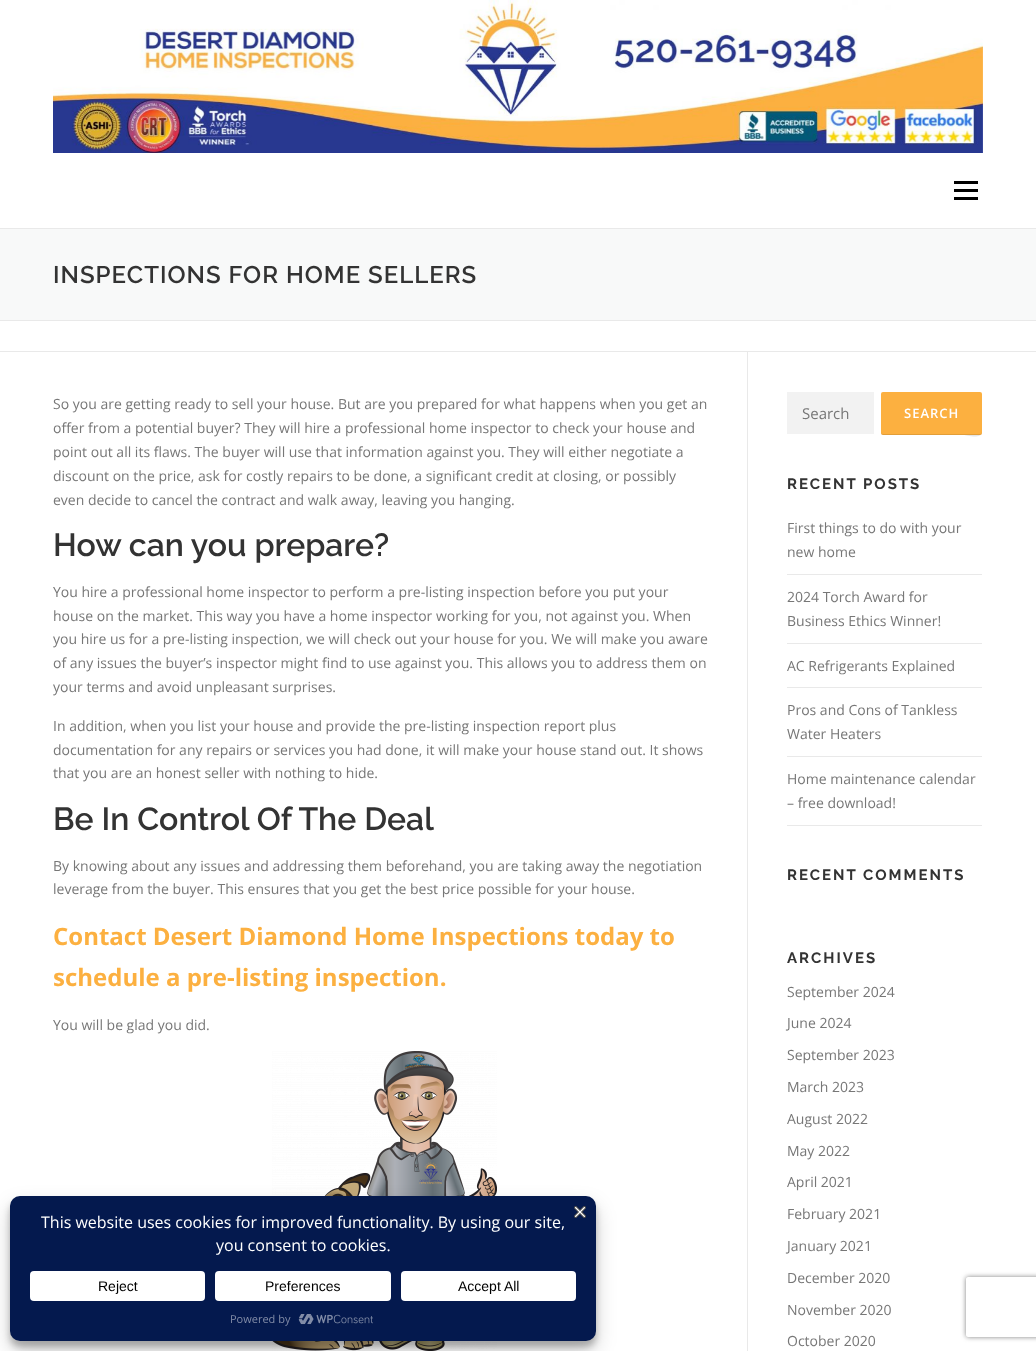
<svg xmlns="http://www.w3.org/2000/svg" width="1036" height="1351">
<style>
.a{font:600 24px Raleway;letter-spacing:1px;fill:#333}
.b{font:14px Open Sans;fill:#777}
.c{font:600 32px Raleway;fill:#333}
.d{font:bold 24px Open Sans;fill:#fcb040}
.e{font:15px Open Sans;fill:#777}
.f{font:600 13px Open Sans;letter-spacing:1px;fill:#fff}
.g{font:bold 15px Raleway;letter-spacing:2px;fill:#333}
.h{font:16px Open Sans;fill:#fff}
.i{font:14px Liberation Sans;fill:#000}
.j{font:11px Open Sans;fill:#828ca7}
</style>
<defs>
<clipPath id="clip1"><path d="M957 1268h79v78h-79zm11 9h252c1 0 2 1 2 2v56c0 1-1 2-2 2h-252c-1 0-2-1-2-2v-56c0-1 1-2 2-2z" clip-rule="evenodd"/></clipPath>
</defs>
<rect width="100%" height="100%" fill="#fff"/>
<image href="1.png" x="53" y="0" width="930" height="153"/>
<path fill="#000" d="M954 189h24v3H954z"/>
<path fill="#000" d="M954 181h24v3H954z"/>
<path fill="#000" d="M954 197h24v3H954z"/>
<path fill="#f8f9f9" d="M0 229h1036v91H0z"/>
<path fill="#e9e9e9" d="M0 228h1036v1H0z"/>
<path fill="#e9e9e9" d="M0 320h1036v1H0z"/>
<path fill="#e9e9e9" d="M0 351h1036v1H0z"/>
<path fill="#e9e9e9" d="M747 352h1v999H747z"/>
<image href="2.png" x="272" y="1051" width="225" height="300"/>
<path fill="#f2f2f2" d="M787 392h87v42H787z"/>
<rect fill="#fcb040" x="881" y="392" width="101" height="43" rx="2"/>
<path fill="#0000001a" d="M881 432c0 1 0 3 2 3h81c1 0 18 5 18-3c0 1-1 2-2 2h-97c-1 0-2-1-2-2z"/>
<path fill="#e9e9e9" d="M787 574h195v1H787z"/>
<path fill="#e9e9e9" d="M787 643h195v1H787z"/>
<path fill="#e9e9e9" d="M787 687h195v1H787z"/>
<path fill="#e9e9e9" d="M787 756h195v1H787z"/>
<path fill="#e9e9e9" d="M787 825h195v1H787z"/>
<rect fill="#0000003b" filter="blur(3px)" x="10" y="1202" width="586" height="145" rx="10"/>
<rect fill="#00000030" filter="blur(10px)" x="10" y="1206" width="586" height="145" rx="10"/>
<rect fill="#04194e" x="10" y="1196" width="586" height="145" rx="10"/>
<image href="3.png" x="574" y="1206" width="12" height="12"/>
<rect fill="#fff" x="30" y="1271" width="175" height="30" rx="4"/>
<rect fill="#fff" x="215" y="1271" width="176" height="30" rx="4"/>
<rect fill="#fff" x="401" y="1271" width="175" height="30" rx="4"/>
<image href="4.png" x="298" y="1314" width="75" height="11"/>
<g clip-path="url(#clip1)">
<rect fill="#808080" filter="blur(2.5px)" x="966" y="1277" width="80" height="60" rx="2"/>
</g>
<text class="a" x="53" y="283">INSPECTIONS FOR HOME SELLERS</text>
<text class="b" x="53" y="409">So you are getting ready to sell your house. But are you prepared for what happens when you get an</text>
<text class="b" x="53" y="433">offer from a potential buyer? They will hire a professional home inspector to check your house and</text>
<text class="b" x="53" y="457">point out all its flaws. The buyer will use that information against you. They will either negotiate a</text>
<text class="b" x="53" y="481">discount on the price, ask for costly repairs to be done, a significant credit at closing, or possibly</text>
<text class="b" x="53" y="505">even decide to cancel the contract and walk away, leaving you hanging.</text>
<text class="c" x="53" y="556">How can you prepare?</text>
<text class="b" x="53" y="597">You hire a professional home inspector to perform a pre-listing inspection before you put your</text>
<text class="b" x="53" y="621">house on the market. This way you have a home inspector working for you, not against you. When</text>
<text class="b" x="53" y="644">you hire us for a pre-listing inspection, we will check out your house for you. We will make you aware</text>
<text class="b" x="53" y="668">of any issues the buyer’s inspector might find to use against you. This allows you to address them on</text>
<text class="b" x="53" y="692">your terms and avoid unpleasant surprises.</text>
<text class="b" x="53" y="731">In addition, when you list your house and provide the pre-listing inspection report plus</text>
<text class="b" x="53" y="755">documentation for any repairs or services you had done, it will make your house stand out. It shows</text>
<text class="b" x="53" y="778">that you are an honest seller with nothing to hide.</text>
<text class="c" x="53" y="830">Be In Control Of The Deal</text>
<text class="b" x="53" y="871">By knowing about any issues and addressing them beforehand, you are taking away the negotiation</text>
<text class="b" x="53" y="894">leverage from the buyer. This ensures that you get the best price possible for your house.</text>
<text class="d" x="53" y="945">Contact Desert Diamond Home Inspections today to</text>
<text class="d" x="53" y="986">schedule a pre-listing inspection.</text>
<text class="b" x="53" y="1030">You will be glad you did.</text>
<text class="e" x="802" y="419">Search</text>
<text class="f" x="904" y="418">SEARCH</text>
<text class="g" x="787" y="489">RECENT POSTS</text>
<text class="b" x="787" y="533">First things to do with your</text>
<text class="b" x="787" y="557">new home</text>
<text class="b" x="787" y="602">2024 Torch Award for</text>
<text class="b" x="787" y="626">Business Ethics Winner!</text>
<text class="b" x="787" y="671">AC Refrigerants Explained</text>
<text class="b" x="787" y="715">Pros and Cons of Tankless</text>
<text class="b" x="787" y="739">Water Heaters</text>
<text class="b" x="787" y="784">Home maintenance calendar</text>
<text class="b" x="787" y="808">– free download!</text>
<text class="g" x="787" y="880">RECENT COMMENTS</text>
<text class="g" x="787" y="963">ARCHIVES</text>
<text class="b" x="787" y="997">September 2024</text>
<text class="b" x="787" y="1028">June 2024</text>
<text class="b" x="787" y="1060">September 2023</text>
<text class="b" x="787" y="1092">March 2023</text>
<text class="b" x="787" y="1124">August 2022</text>
<text class="b" x="787" y="1156">May 2022</text>
<text class="b" x="787" y="1187">April 2021</text>
<text class="b" x="787" y="1219">February 2021</text>
<text class="b" x="787" y="1251">January 2021</text>
<text class="b" x="787" y="1283">December 2020</text>
<text class="b" x="787" y="1315">November 2020</text>
<text class="b" x="787" y="1346">October 2020</text>
<text class="h" x="41" y="1228">This website uses cookies for improved functionality. By using our site,</text>
<text class="h" x="216" y="1251">you consent to cookies.</text>
<text class="i" x="98" y="1291">Reject</text>
<text class="i" x="265" y="1291">Preferences</text>
<text class="i" x="458" y="1291">Accept All</text>
<text class="j" x="230" y="1323">Powered by</text>
</svg>
